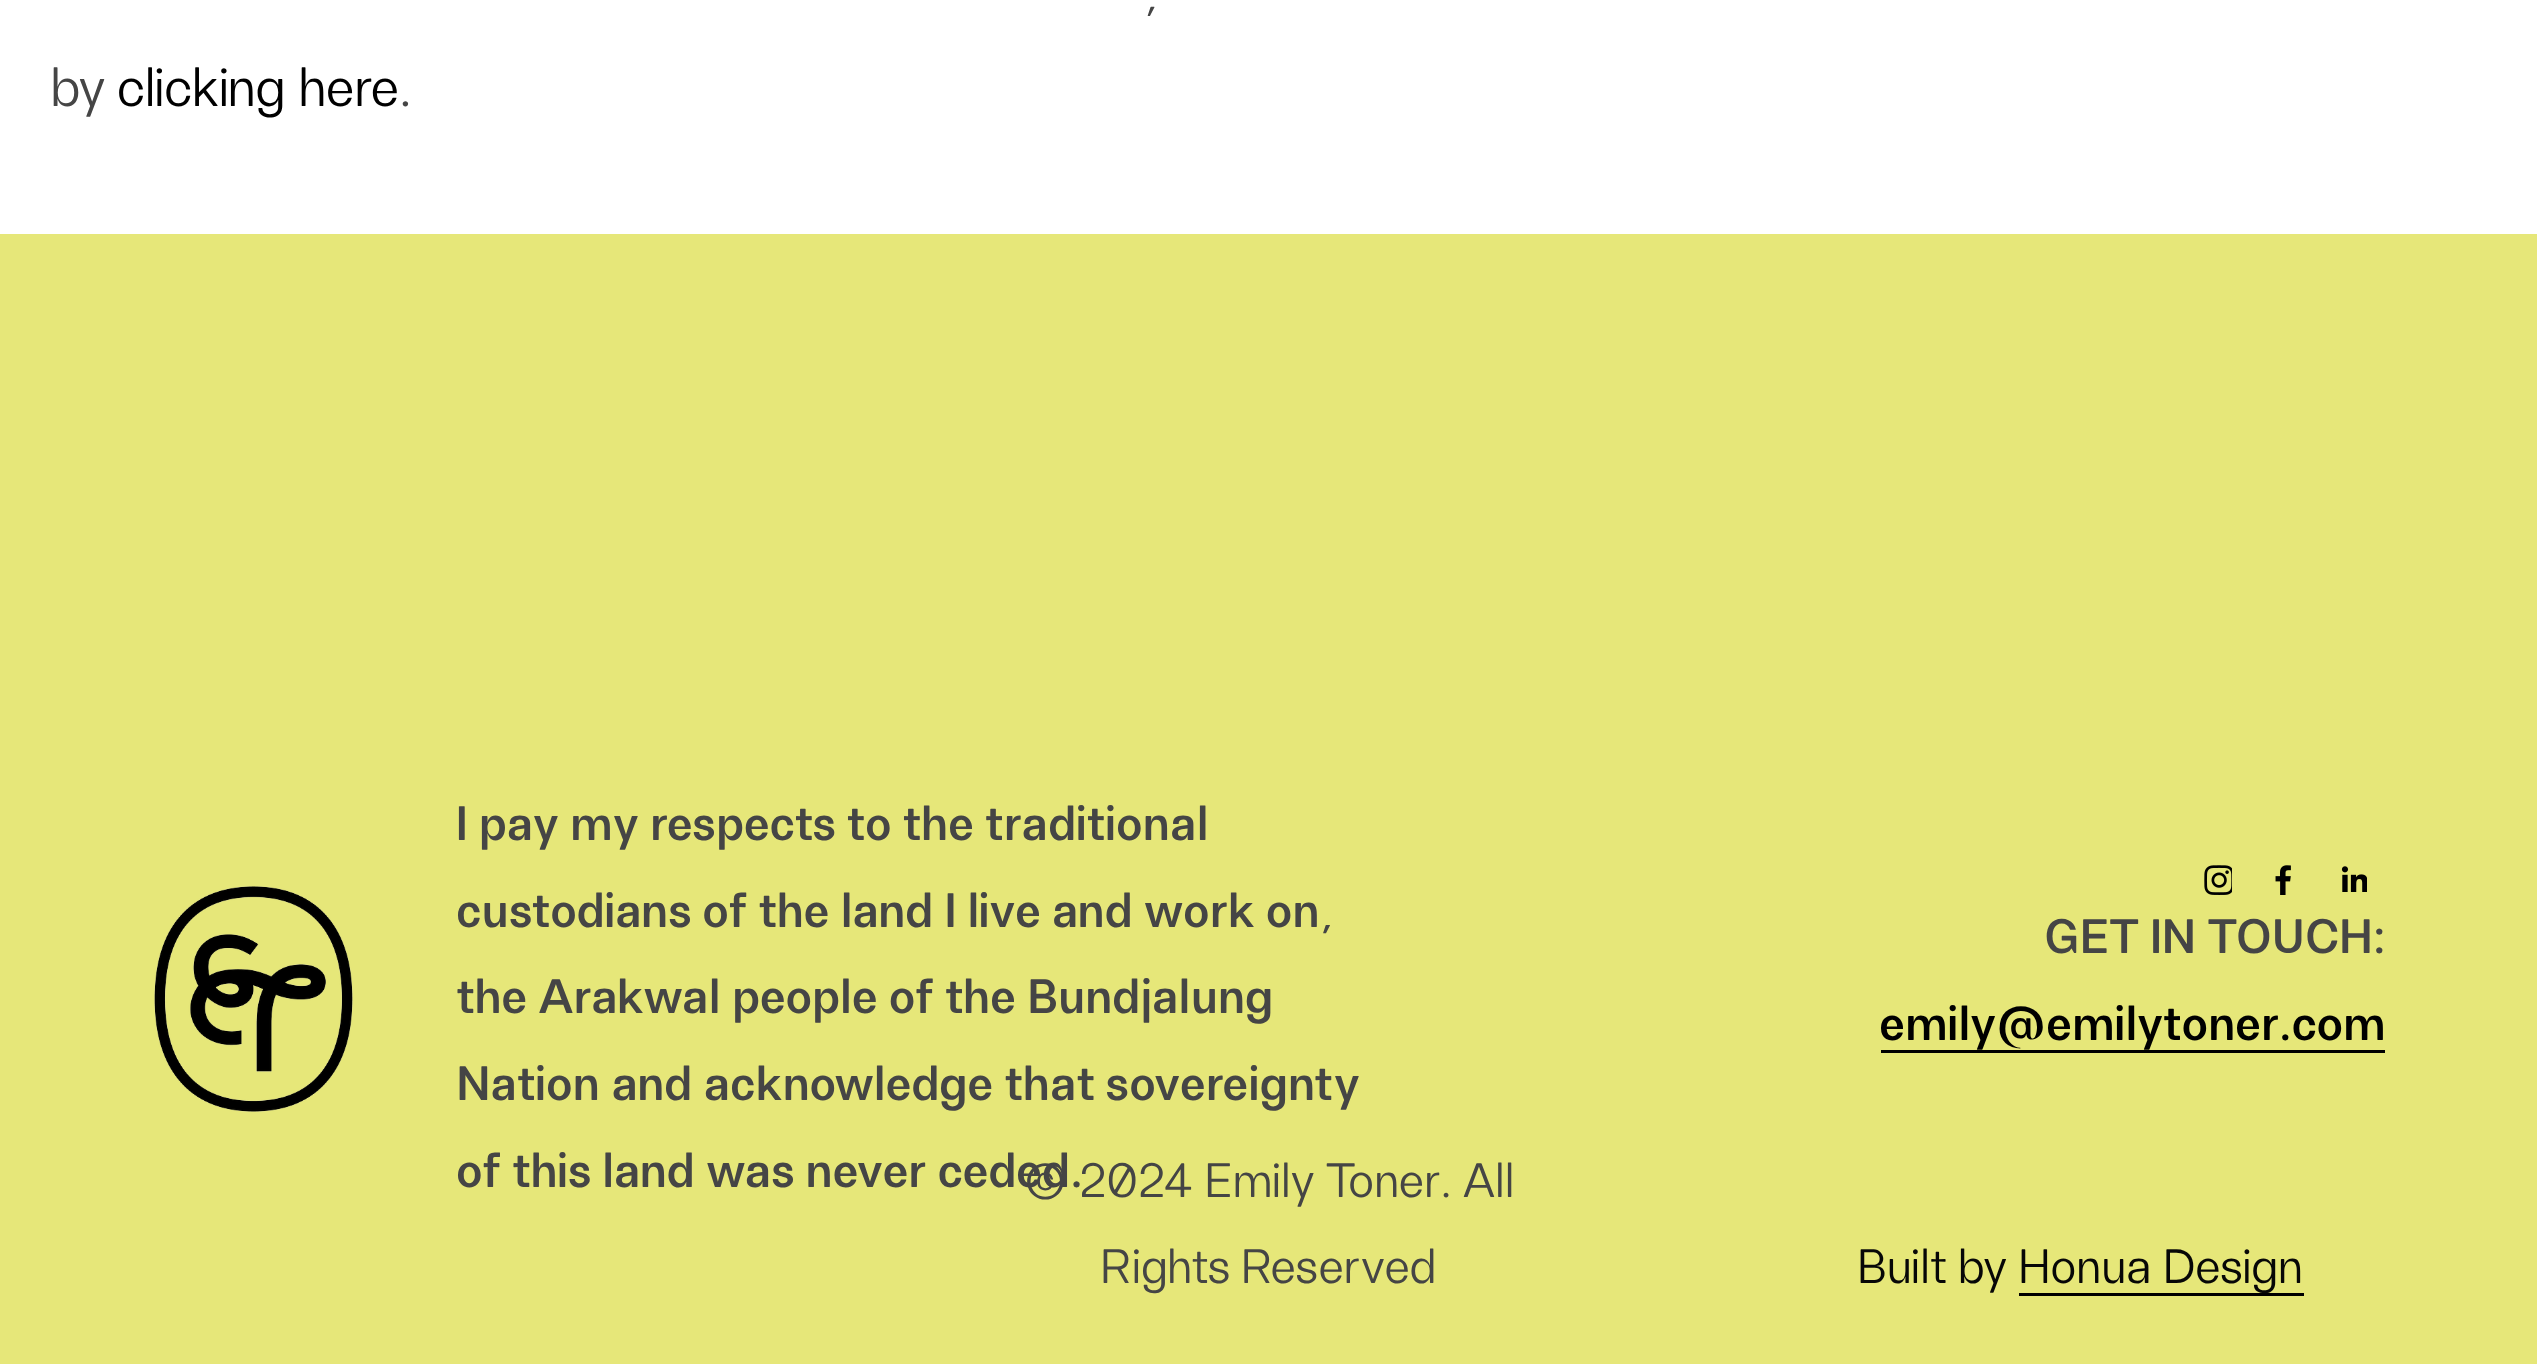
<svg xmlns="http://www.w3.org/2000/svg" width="2537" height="1364">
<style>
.a{font:54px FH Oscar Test;letter-spacing:1.65px;fill:#454545}
.b{font:54px FH Oscar Test;letter-spacing:1.65px;fill:#000}
.c{font:bold 48.1px FH Oscar Test;letter-spacing:1.65px;fill:#454545}
.d{font:bold 48.1px FH Oscar Test;letter-spacing:1.65px;fill:#000}
.e{font:48.1px FH Oscar Test;letter-spacing:1.65px;fill:#454545}
.f{font:48.1px FH Oscar Test;letter-spacing:1.65px;fill:#070707}
</style>
<rect width="100%" height="100%" fill="#fff"/>
<path fill="#e6e779" d="M0 234h2537v1130H0z"/>
<image href="1.png" x="2204" y="865" width="28" height="30"/>
<image href="2.png" x="2275" y="865" width="16" height="30"/>
<image href="3.png" x="2341" y="866" width="26" height="26"/>
<image href="4.png" x="154" y="886" width="199" height="226"/>
<path fill="#000" d="M1881 1050h504v3H1881z"/>
<path fill="#000" d="M2019 1293h285v3H2019z"/>
<text class="a" x="1145" y="9">,</text>
<text class="a" x="51" y="106">by</text>
<text class="b" x="118" y="106">clicking here</text>
<text class="a" x="400" y="106">.</text>
<text class="c" x="457" y="840">I pay my respects to the traditional</text>
<text class="c" x="457" y="927">custodians of the land I live and work on,</text>
<text class="c" x="457" y="1013">the Arakwal people of the Bundjalung</text>
<text class="c" x="457" y="1100">Nation and acknowledge that sovereignty</text>
<text class="c" x="457" y="1187">of this land was never ceded.</text>
<text class="c" x="2045" y="953">GET IN TOUCH:</text>
<text class="d" x="1880" y="1040">emily@emilytoner.com</text>
<text class="e" x="1024" y="1197">© 2024 Emily Toner. All</text>
<text class="e" x="1101" y="1283">Rights Reserved</text>
<text class="f" x="1858" y="1283">Built by</text>
<text class="f" x="2019" y="1283">Honua Design</text>
</svg>
